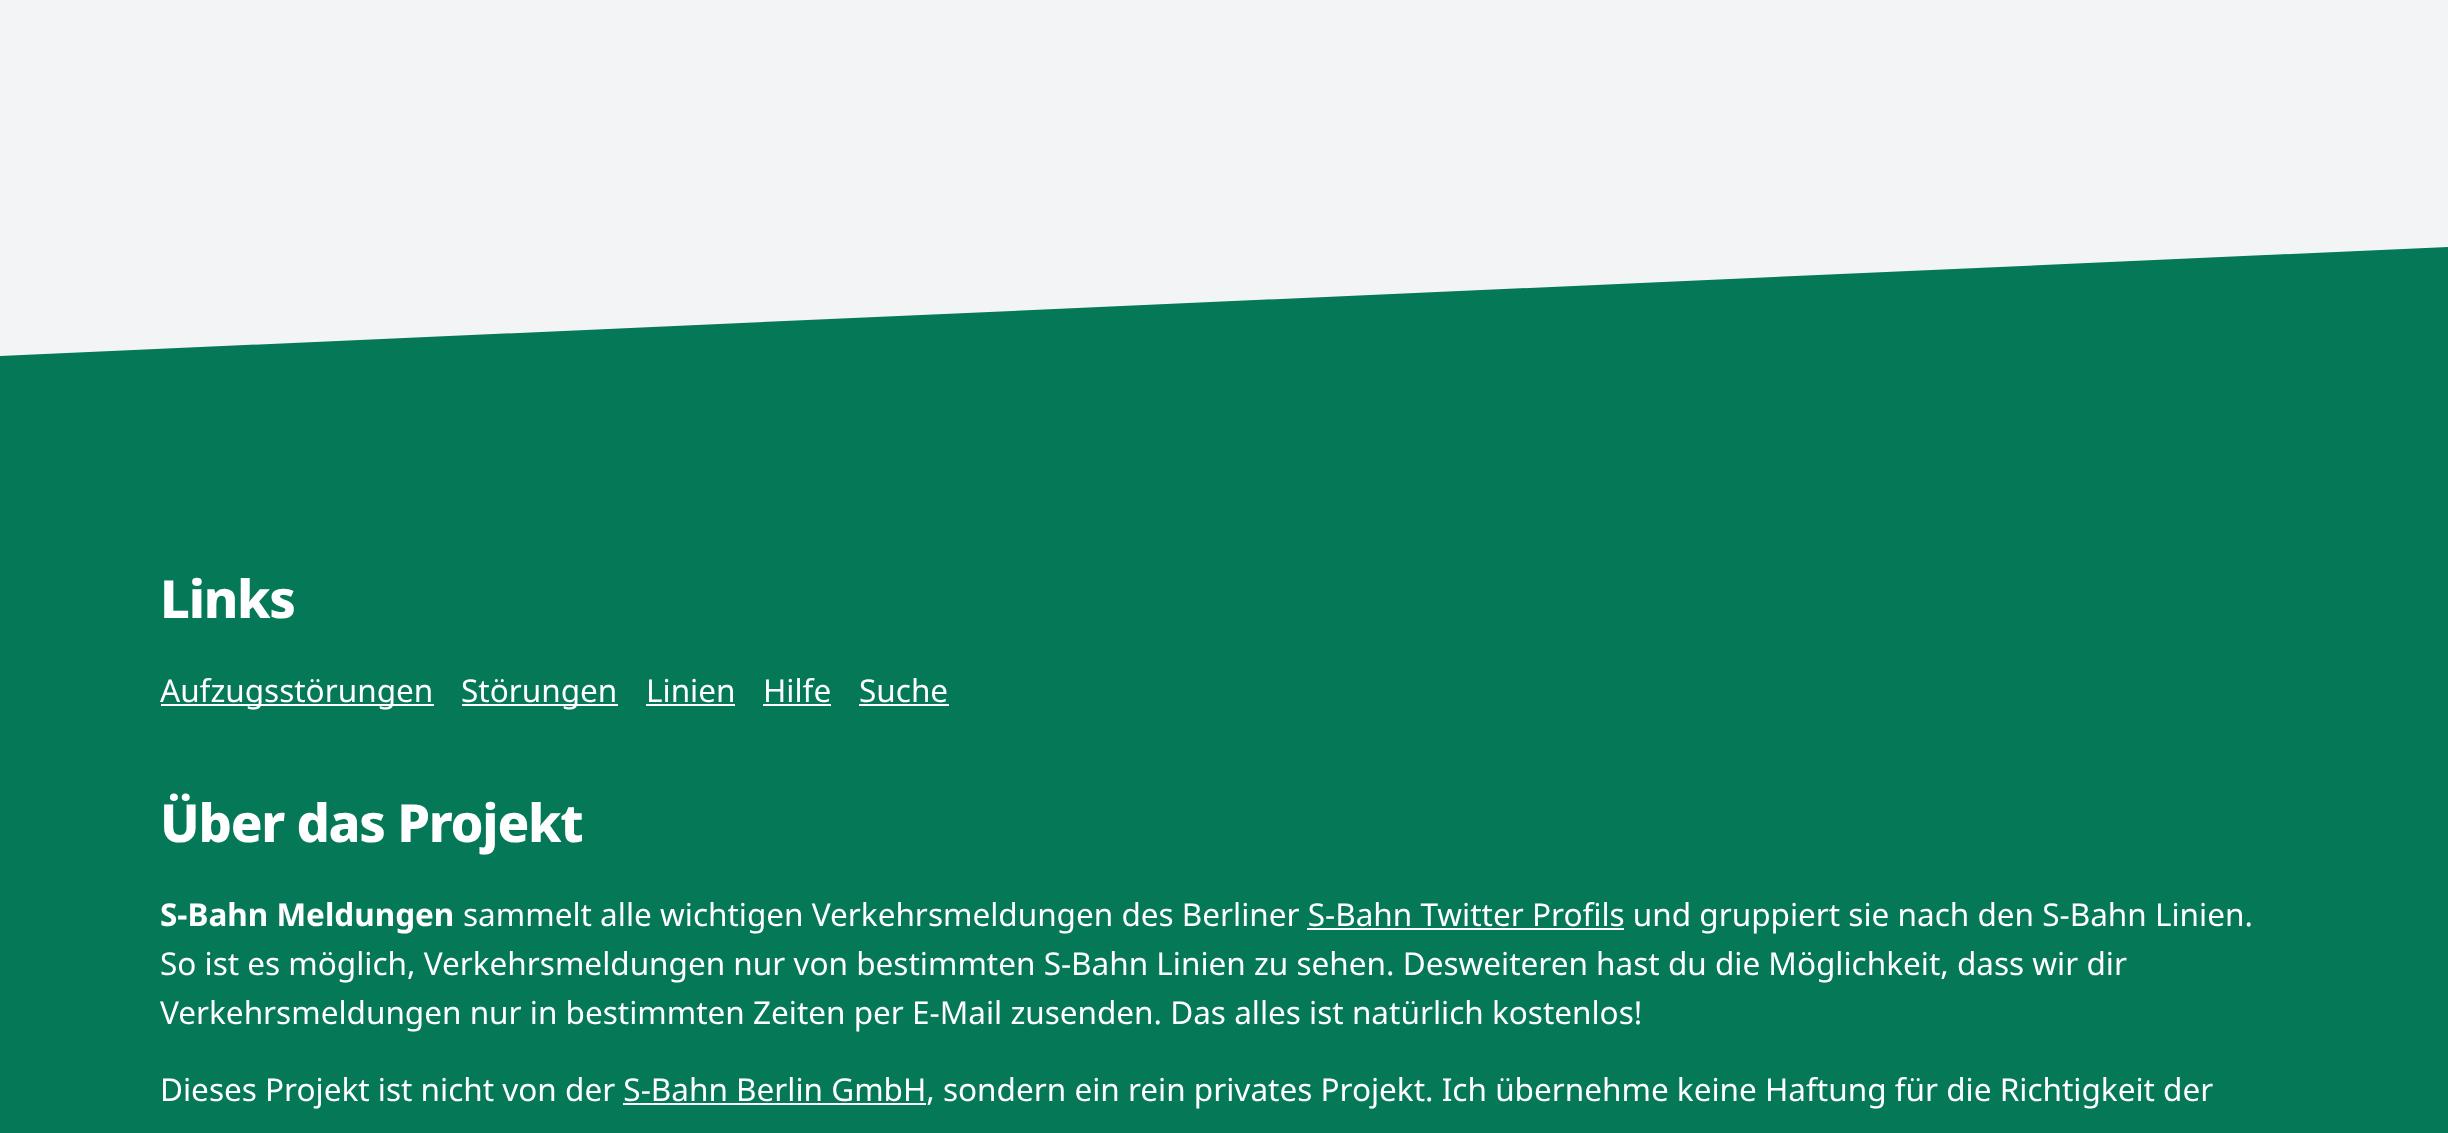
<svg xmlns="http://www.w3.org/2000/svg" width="2448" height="1133">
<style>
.a{font:800 52.5px Noto Sans;letter-spacing:-1.25px;fill:#fff}
.b{font:31.5px Noto Sans;fill:#fff}
.c{font:bold 31.5px Noto Sans;fill:#fff}
</style>
<rect width="100%" height="100%" fill="#f3f4f6"/>
<path fill="#047857" d="M0 356l2448-109v327h-2448z"/>
<path fill="#047857" d="M0 574h2448v559H0z"/>
<path fill="#fff" d="M161 704h273v2H161z"/>
<path fill="#fff" d="M462 704h156v2H462z"/>
<path fill="#fff" d="M646 704h89v2H646z"/>
<path fill="#fff" d="M763 704h68v2H763z"/>
<path fill="#fff" d="M859 704h90v2H859z"/>
<path fill="#fff" d="M1307 928h317v2H1307z"/>
<path fill="#fff" d="M623 1103h303v2H623z"/>
<text class="a" x="160" y="618">Links</text>
<text class="b" x="160" y="702">Aufzugsstörungen</text>
<text class="b" x="461" y="702">Störungen</text>
<text class="b" x="646" y="702">Linien</text>
<text class="b" x="763" y="702">Hilfe</text>
<text class="b" x="859" y="702">Suche</text>
<text class="a" x="160" y="842">Über das Projekt</text>
<text class="c" x="160" y="926">S-Bahn Meldungen</text>
<text class="b" x="463" y="926">sammelt alle wichtigen Verkehrsmeldungen des Berliner S-Bahn Twitter Profils und gruppiert sie nach den S-Bahn Linien.</text>
<text class="b" x="160" y="975">So ist es möglich, Verkehrsmeldungen nur von bestimmten S-Bahn Linien zu sehen. Desweiteren hast du die Möglichkeit, dass wir dir</text>
<text class="b" x="160" y="1024">Verkehrsmeldungen nur in bestimmten Zeiten per E-Mail zusenden. Das alles ist natürlich kostenlos!</text>
<text class="b" x="160" y="1101">Dieses Projekt ist nicht von der S-Bahn Berlin GmbH, sondern ein rein privates Projekt. Ich übernehme keine Haftung für die Richtigkeit der</text>
</svg>
